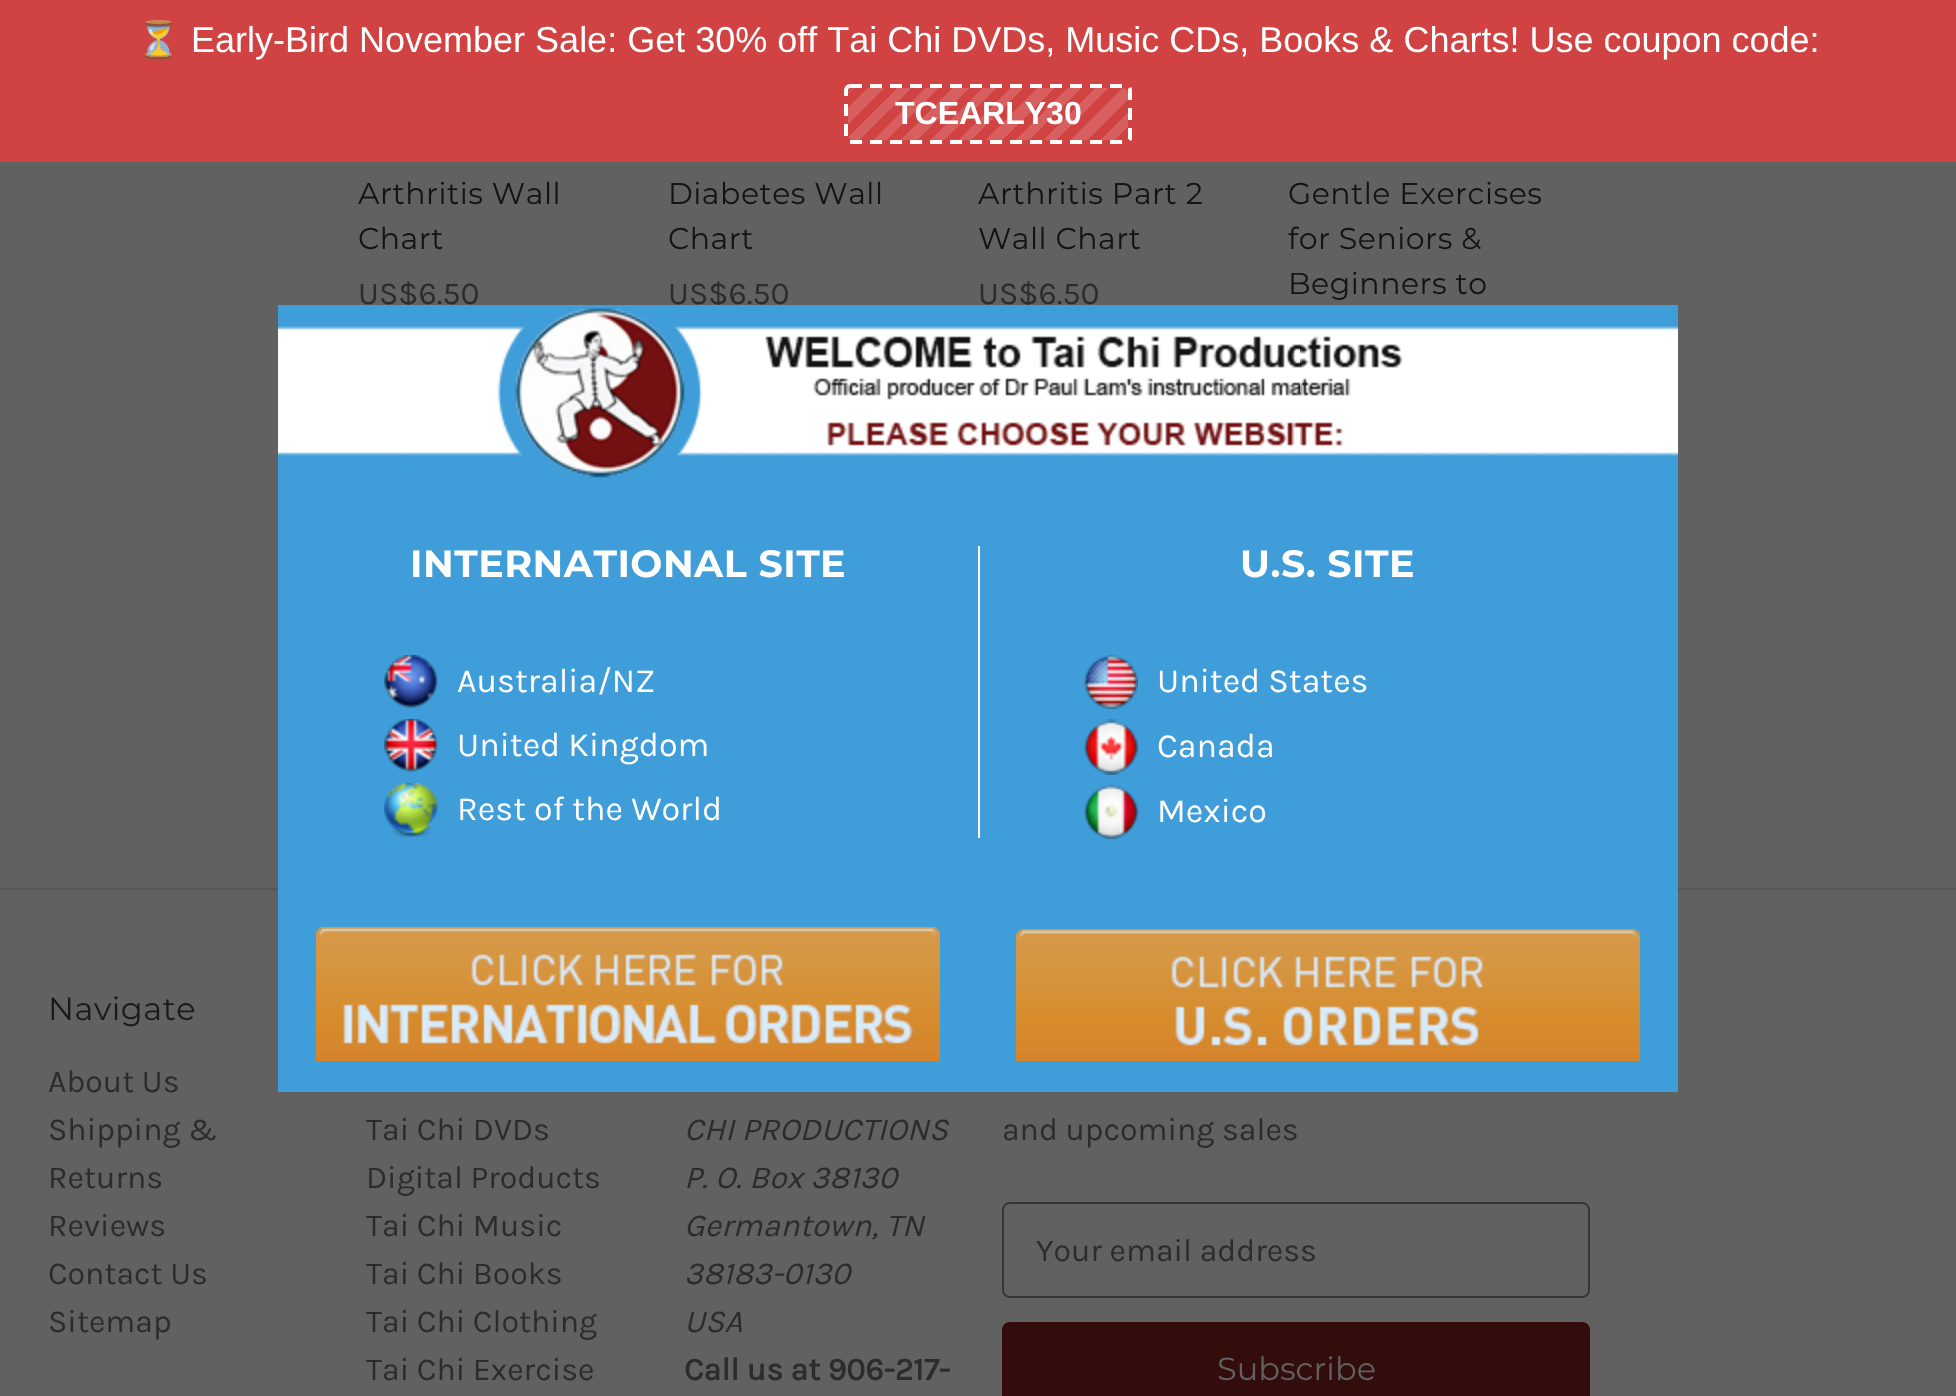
<svg xmlns="http://www.w3.org/2000/svg" width="1956" height="1396">
<style>*{font-kerning:none!important;font-variant-ligatures:none!important}</style>
<style>
.a{font:36px Noto Color Emoji;fill:#fff}
.b{font:36px Liberation Sans;fill:#fff}
.c{font:bold 32px Liberation Sans;fill:#fff}
.d{font:30px Montserrat;letter-spacing:0.5px;fill:#131313}
.e{font:32px Karla;fill:#2c2c2c}
.f{font:bold 38px Montserrat;letter-spacing:0.5px;fill:#fff}
.g{font:34px Karla;fill:#fff}
.h{font:32px Montserrat;letter-spacing:0.5px;fill:#1a1a1a}
.i{font:italic 32px Karla;fill:#2c2c2c}
.j{font:bold 32px Karla;fill:#2c2c2c}
.k{font:32px Montserrat;fill:#616161}
</style>
<defs>
<linearGradient id="g1" gradientUnits="userSpaceOnUse" x1="1071" y1="197" x2="901" y2="27"><stop offset="0" stop-color="#d14343"/><stop offset="0.04" stop-color="#d14343"/><stop offset="0.04" stop-color="#d85f5f"/><stop offset="0.08" stop-color="#d85f5f"/><stop offset="0.08" stop-color="#d14343"/><stop offset="0.12" stop-color="#d14343"/><stop offset="0.12" stop-color="#d85f5f"/><stop offset="0.17" stop-color="#d85f5f"/><stop offset="0.17" stop-color="#d14343"/><stop offset="0.21" stop-color="#d14343"/><stop offset="0.21" stop-color="#d85f5f"/><stop offset="0.25" stop-color="#d85f5f"/><stop offset="0.25" stop-color="#d14343"/><stop offset="0.29" stop-color="#d14343"/><stop offset="0.29" stop-color="#d85f5f"/><stop offset="0.33" stop-color="#d85f5f"/><stop offset="0.33" stop-color="#d14343"/><stop offset="0.37" stop-color="#d14343"/><stop offset="0.37" stop-color="#d85f5f"/><stop offset="0.42" stop-color="#d85f5f"/><stop offset="0.42" stop-color="#d14343"/><stop offset="0.46" stop-color="#d14343"/><stop offset="0.46" stop-color="#d85f5f"/><stop offset="0.5" stop-color="#d85f5f"/><stop offset="0.5" stop-color="#d14343"/><stop offset="0.54" stop-color="#d14343"/><stop offset="0.54" stop-color="#d85f5f"/><stop offset="0.58" stop-color="#d85f5f"/><stop offset="0.58" stop-color="#d14343"/><stop offset="0.62" stop-color="#d14343"/><stop offset="0.62" stop-color="#d85f5f"/><stop offset="0.67" stop-color="#d85f5f"/><stop offset="0.67" stop-color="#d14343"/><stop offset="0.71" stop-color="#d14343"/><stop offset="0.71" stop-color="#d85f5f"/><stop offset="0.75" stop-color="#d85f5f"/><stop offset="0.75" stop-color="#d14343"/><stop offset="0.79" stop-color="#d14343"/><stop offset="0.79" stop-color="#d85f5f"/><stop offset="0.83" stop-color="#d85f5f"/><stop offset="0.83" stop-color="#d14343"/><stop offset="0.87" stop-color="#d14343"/><stop offset="0.87" stop-color="#d85f5f"/><stop offset="0.92" stop-color="#d85f5f"/><stop offset="0.92" stop-color="#d14343"/><stop offset="0.96" stop-color="#d14343"/><stop offset="0.96" stop-color="#d85f5f"/><stop offset="1" stop-color="#d85f5f"/></linearGradient>
</defs>
<rect width="100%" height="100%" fill="#616161"/>
<path fill="#d14343" d="M0 0h1956v162H0z"/>
<path fill="none" stroke="#fff" stroke-width="4" stroke-dasharray="12 8" d="M850 86h276c2 0 4 2 4 4v48c0 2-2 4-4 4h-276c-2 0-4-2-4-4v-48c0-2 2-4 4-4z"/>
<rect fill="url(#g1)" x="848" y="88" width="280" height="52" rx="6"/>
<path fill="#575757" d="M0 888h1956v2H0z"/>
<path fill="#3f9dd9" d="M278 478h1400v614H278z"/>
<image href="2.png" x="384" y="655" width="54" height="54"/>
<image href="3.png" x="384" y="719" width="54" height="54"/>
<image href="4.png" x="384" y="783" width="54" height="54"/>
<image href="5.png" x="316" y="927" width="624" height="134"/>
<path fill="#fff" d="M978 546h2v292H978z"/>
<image href="6.png" x="1084" y="655" width="54" height="54"/>
<image href="7.png" x="1084" y="719" width="54" height="56"/>
<image href="8.png" x="1084" y="785" width="54" height="54"/>
<image href="9.png" x="1016" y="929" width="624" height="132"/>
<rect fill="none" stroke="#363636" stroke-width="2" x="1003" y="1203" width="586" height="94" rx="7"/>
<rect fill="#330d0b" stroke="#330d0b" stroke-width="2" x="1003" y="1323" width="586" height="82" rx="7"/>
<text class="a" x="136" y="52">⏳</text>
<text class="b" x="191" y="52">Early-Bird November Sale: Get 30% off Tai Chi DVDs, Music CDs, Books &amp; Charts! Use coupon code:</text>
<text class="c" x="895" y="124">TCEARLY30</text>
<text class="d" x="358" y="204">Arthritis Wall</text>
<text class="d" x="358" y="249">Chart</text>
<text class="e" x="358" y="304">US$6.50</text>
<text class="d" x="668" y="204">Diabetes Wall</text>
<text class="d" x="668" y="249">Chart</text>
<text class="e" x="668" y="304">US$6.50</text>
<text class="d" x="978" y="204">Arthritis Part 2</text>
<text class="d" x="978" y="249">Wall Chart</text>
<text class="e" x="978" y="304">US$6.50</text>
<text class="d" x="1288" y="204">Gentle Exercises</text>
<text class="d" x="1288" y="249">for Seniors &amp;</text>
<text class="d" x="1288" y="294">Beginners to</text>
<image href="1.png" x="278" y="305" width="1400" height="173"/>
<text class="f" x="410" y="577">INTERNATIONAL SITE</text>
<text class="g" x="457" y="692">Australia/NZ</text>
<text class="g" x="457" y="756">United Kingdom</text>
<text class="g" x="457" y="820">Rest of the World</text>
<text class="f" x="1240" y="577">U.S. SITE</text>
<text class="g" x="1157" y="692">United States</text>
<text class="g" x="1157" y="757">Canada</text>
<text class="g" x="1157" y="822">Mexico</text>
<text class="h" x="48" y="1020">Navigate</text>
<text class="e" x="48" y="1092">About Us</text>
<text class="e" x="48" y="1140">Shipping &amp;</text>
<text class="e" x="48" y="1188">Returns</text>
<text class="e" x="48" y="1236">Reviews</text>
<text class="e" x="48" y="1284">Contact Us</text>
<text class="e" x="48" y="1332">Sitemap</text>
<text class="e" x="366" y="1140">Tai Chi DVDs</text>
<text class="e" x="366" y="1188">Digital Products</text>
<text class="e" x="366" y="1236">Tai Chi Music</text>
<text class="e" x="366" y="1284">Tai Chi Books</text>
<text class="e" x="366" y="1332">Tai Chi Clothing</text>
<text class="e" x="366" y="1380">Tai Chi Exercise</text>
<text class="i" x="684" y="1140">CHI PRODUCTIONS</text>
<text class="i" x="684" y="1188">P. O. Box 38130</text>
<text class="i" x="684" y="1236">Germantown, TN</text>
<text class="i" x="684" y="1284">38183-0130</text>
<text class="i" x="684" y="1332">USA</text>
<text class="j" x="684" y="1380">Call us at 906-217-</text>
<text class="e" x="1002" y="1140">and upcoming sales</text>
<text class="e" x="1036" y="1261">Your email address</text>
<text class="k" x="1217" y="1380">Subscribe</text>
</svg>
